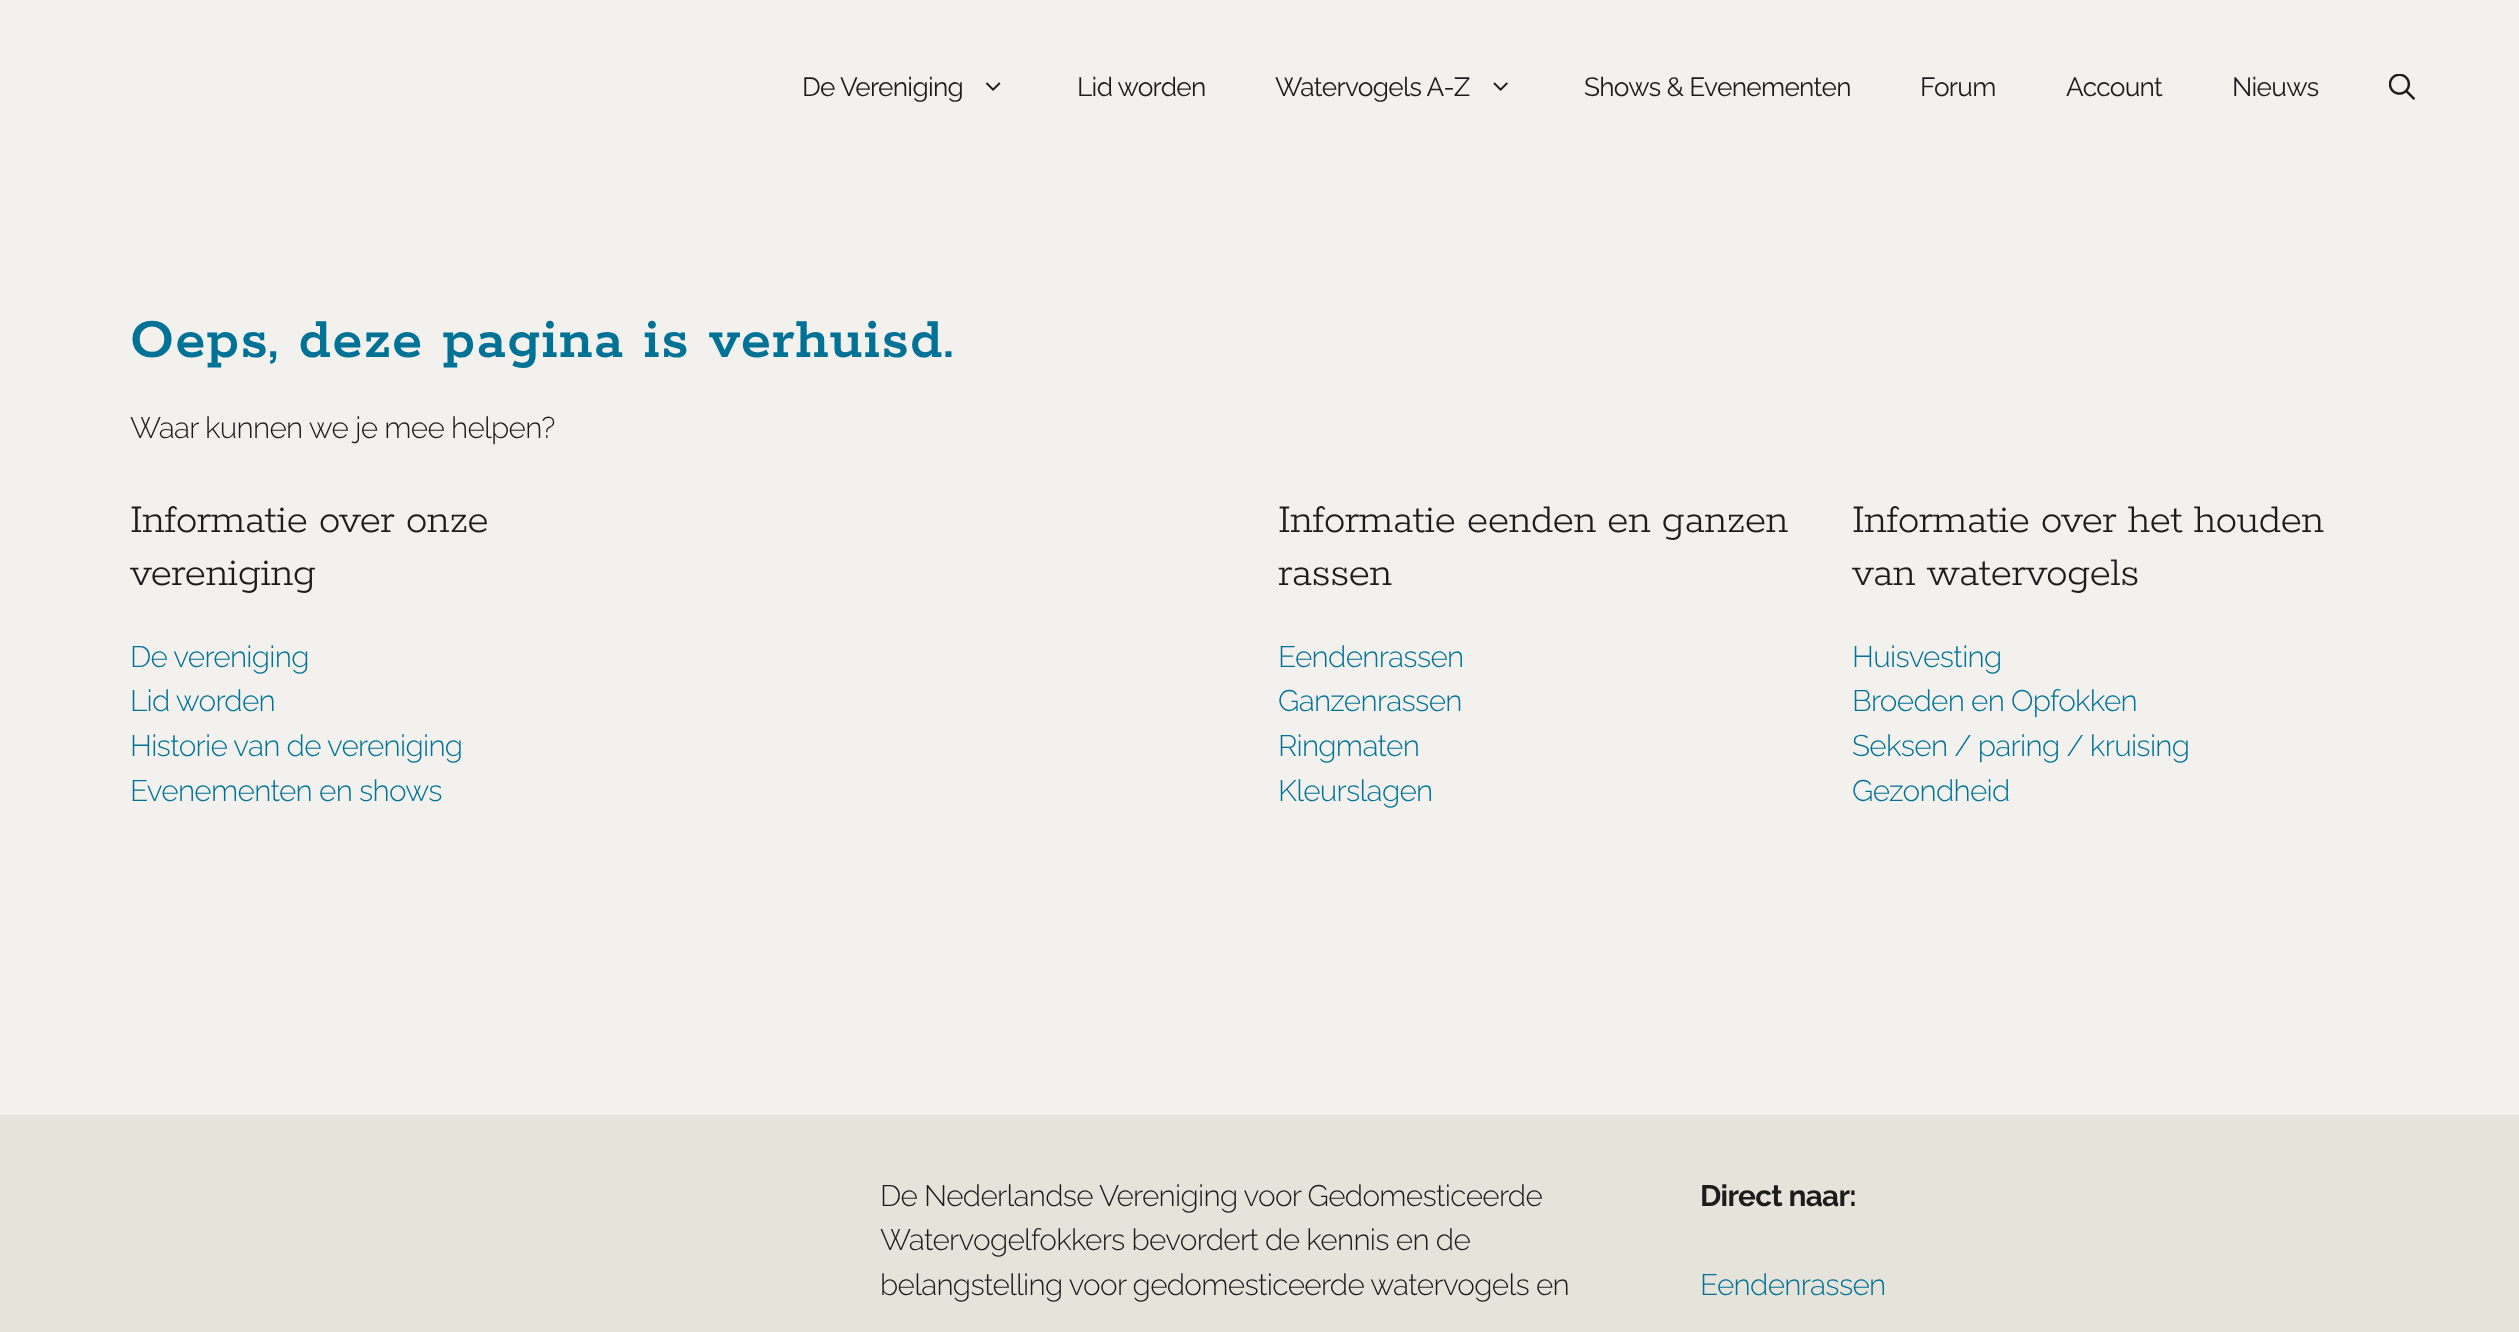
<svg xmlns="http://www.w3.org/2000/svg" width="2519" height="1332">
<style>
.a{font:26.25px Raleway;letter-spacing:-0.7px;fill:#1c1c1c}
.b{font:600 61.25px Rokkitt;letter-spacing:1.25px;fill:#007296}
.c{font:300 29.75px Raleway;letter-spacing:-0.7px;fill:#1c1c1c}
.d{font:300 43.75px Rokkitt;letter-spacing:-0.7px;fill:#1c1c1c}
.e{font:300 29.75px Raleway;letter-spacing:-0.7px;fill:#007296}
.f{font:bold 29.75px Raleway;letter-spacing:-0.7px;fill:#1c1c1c}
</style>
<rect width="100%" height="100%" fill="#f3f1ee"/>
<image href="1.png" x="985" y="82" width="16" height="9"/>
<image href="2.png" x="1493" y="82" width="15" height="9"/>
<image href="3.png" x="2389" y="74" width="26" height="26"/>
<path fill="#e6e3da" d="M0 1115h2519v217H0z"/>
<text class="a" x="802" y="96">De Vereniging</text>
<text class="a" x="1077" y="96">Lid worden</text>
<text class="a" x="1275" y="96">Watervogels A-Z</text>
<text class="a" x="1584" y="96">Shows &amp; Evenementen</text>
<text class="a" x="1920" y="96">Forum</text>
<text class="a" x="2066" y="96">Account</text>
<text class="a" x="2232" y="96">Nieuws</text>
<text class="b" x="130" y="357">Oeps, deze pagina is verhuisd.</text>
<text class="c" x="130" y="438">Waar kunnen we je mee helpen?</text>
<text class="d" x="130" y="532">Informatie over onze</text>
<text class="d" x="130" y="585">vereniging</text>
<text class="e" x="130" y="667">De vereniging</text>
<text class="e" x="130" y="711">Lid worden</text>
<text class="e" x="130" y="756">Historie van de vereniging</text>
<text class="e" x="130" y="801">Evenementen en shows</text>
<text class="d" x="1278" y="532">Informatie eenden en ganzen</text>
<text class="d" x="1278" y="585">rassen</text>
<text class="e" x="1278" y="667">Eendenrassen</text>
<text class="e" x="1278" y="711">Ganzenrassen</text>
<text class="e" x="1278" y="756">Ringmaten</text>
<text class="e" x="1278" y="801">Kleurslagen</text>
<text class="d" x="1852" y="532">Informatie over het houden</text>
<text class="d" x="1852" y="585">van watervogels</text>
<text class="e" x="1852" y="667">Huisvesting</text>
<text class="e" x="1852" y="711">Broeden en Opfokken</text>
<text class="e" x="1852" y="756">Seksen / paring / kruising</text>
<text class="e" x="1852" y="801">Gezondheid</text>
<text class="c" x="880" y="1206">De Nederlandse Vereniging voor Gedomesticeerde</text>
<text class="c" x="880" y="1250">Watervogelfokkers bevordert de kennis en de</text>
<text class="c" x="880" y="1295">belangstelling voor gedomesticeerde watervogels en</text>
<text class="f" x="1700" y="1206">Direct naar:</text>
<text class="e" x="1700" y="1295">Eendenrassen</text>
</svg>
